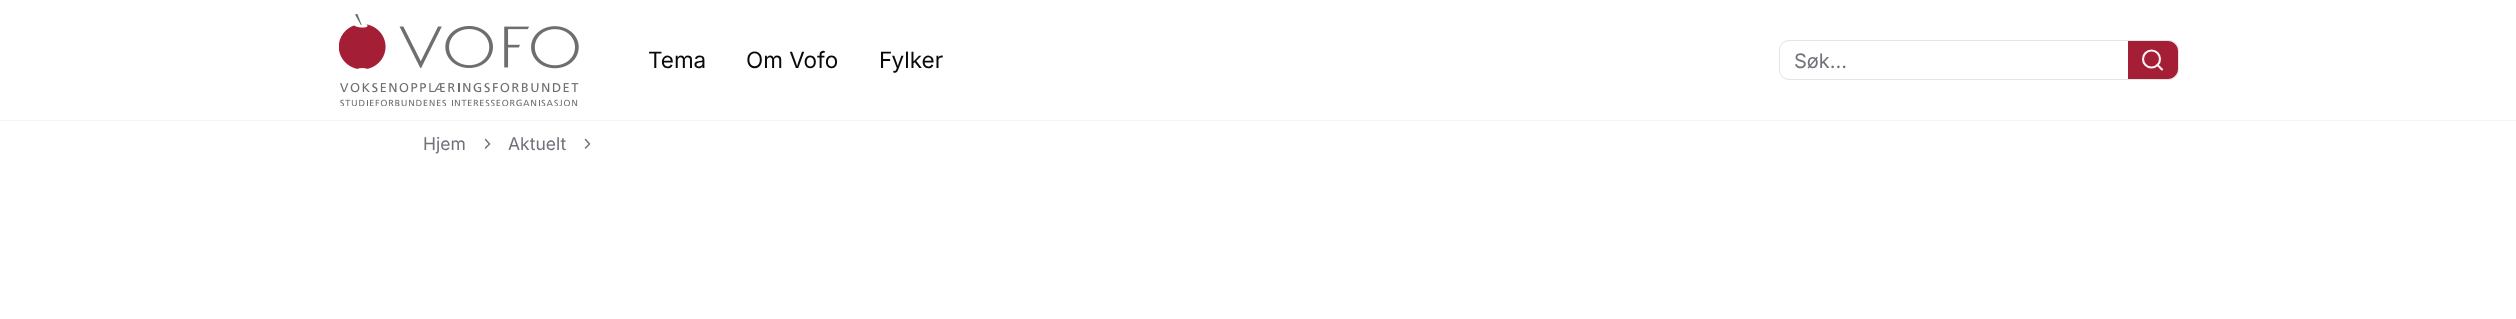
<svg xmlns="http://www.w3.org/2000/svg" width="2516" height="319">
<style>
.a{font:22.5px Inter;fill:#09090b}
.b{font:20px Inter;fill:#71717a}
.c{font:17.5px Inter;fill:#71717a}
</style>
<rect width="100%" height="100%" fill="#fff"/>
<path fill="#f4f4f5" d="M0 120h2516v1H0z"/>
<image href="1.png" x="339" y="14" width="240" height="92"/>
<rect fill="none" stroke="#e4e4e7" x="1779.5" y="40.5" width="399" height="39" rx="9.5"/>
<path fill="#a41f35" d="M2128 41h40c5.5 0 10 4.5 10 10v18c0 5.5-4.5 10-10 10h-40z"/>
<circle fill="none" stroke="#fff1f2" stroke-width="2.1" cx="2151.5" cy="59" r="8.5"/>
<path fill="none" stroke="#fff1f2" stroke-width="2.1" stroke-linecap="round" stroke-linejoin="round" d="M2162 69.5l-4.5-4.5"/>
<path fill="none" stroke="#71717a" stroke-width="1.5" stroke-linecap="round" stroke-linejoin="round" d="M485.5 148l4-4l-4-4.5"/>
<path fill="none" stroke="#71717a" stroke-width="1.5" stroke-linecap="round" stroke-linejoin="round" d="M585.5 148l4-4l-4-4.5"/>
<text class="a" x="648" y="68">Tema</text>
<text class="a" x="746" y="68">Om Vofo</text>
<text class="a" x="879" y="68">Fylker</text>
<text class="b" x="1794" y="68">Søk…</text>
<text class="c" x="423" y="150">Hjem</text>
<text class="c" x="508" y="150">Aktuelt</text>
</svg>
